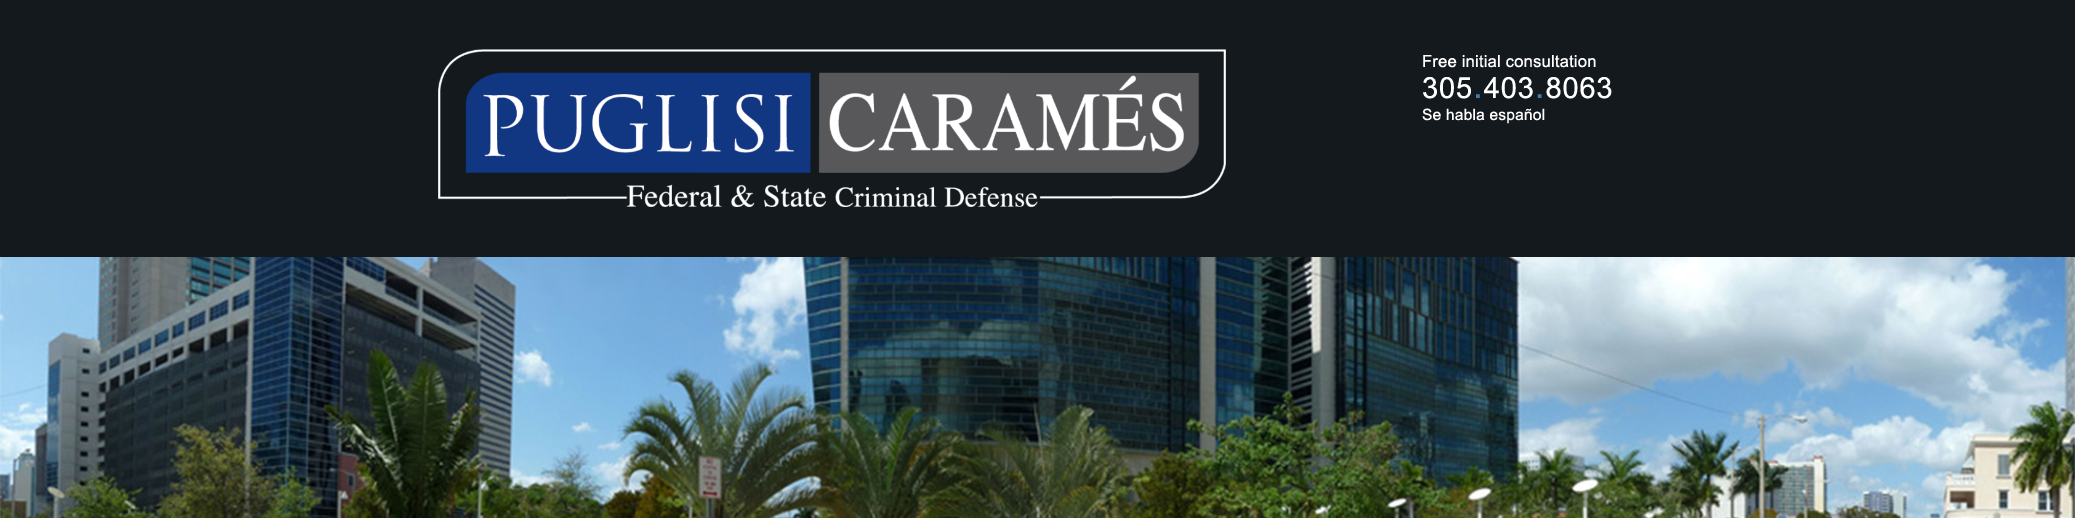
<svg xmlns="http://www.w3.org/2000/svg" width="2075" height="518">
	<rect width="100%" height="100%" fill="#14191E" />
	<image x="438" y="49" width="788" height="158" href="assets/img1.png" />
	<image x="1422" y="55" width="190" height="69" href="assets/img2.png" />
	<image x="0" y="257" width="2075" height="261" href="assets/img3.png" />
</svg>
